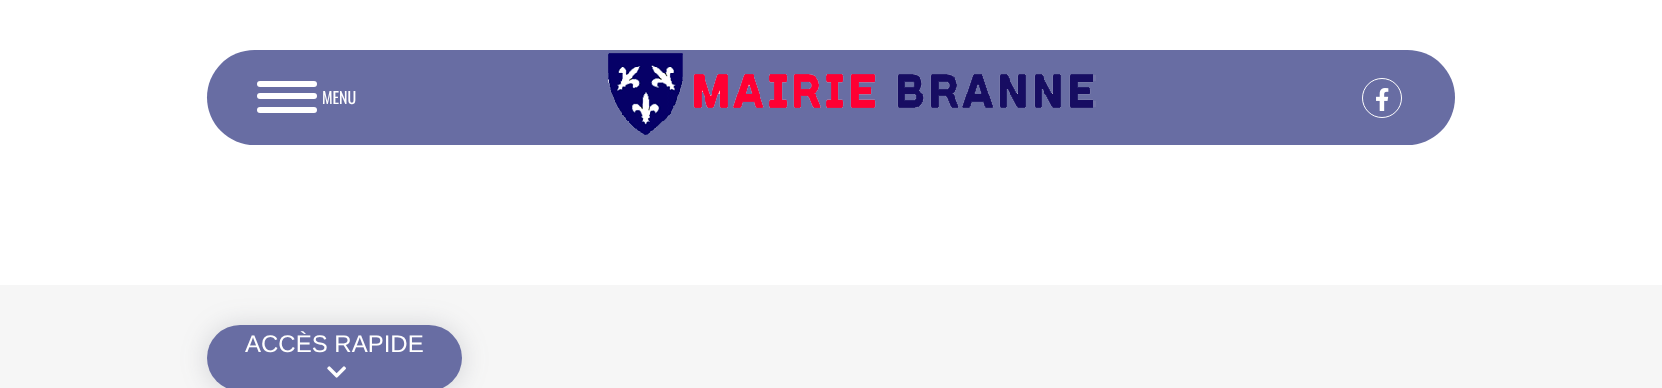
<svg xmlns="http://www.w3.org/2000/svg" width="1662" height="388">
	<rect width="100%" height="100%" fill="#FFFFFF" />
	<rect x="207" y="50" width="1248" height="95" rx="47.5" fill="#686DA3" />
	<rect x="257" y="81" width="60" height="6" rx="3" fill="#FFFFFF" />
	<rect x="257" y="93" width="60" height="6" rx="3" fill="#FFFFFF" />
	<rect x="257" y="107" width="60" height="6" rx="3" fill="#FFFFFF" />
	<text x="322" y="104" font-family="Oswald" font-size="16" fill="#FFFFFF">MENU</text>
	<image x="608" y="53" width="488" height="82" href="assets/img1.png" />
	<circle cx="1382" cy="98" r="19.5" fill="none" stroke="#FFFFFF" />
	<image x="1376" y="88" width="13" height="23" href="assets/img2.png" />
	<rect x="0" y="285" width="1662" height="103" fill="#F6F6F6" />
	<rect x="206" y="325" width="257" height="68" rx="34" fill="#535C68" fill-opacity="0.2" filter="blur(13px)" />
	<rect x="207" y="325" width="255" height="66" rx="33" fill="#686DA3" />
	<text x="245" y="352" font-family="Liberation Sans" font-size="24" fill="#FFFFFF">ACCÈS RAPIDE</text>
	<image x="327" y="366" width="19" height="12" href="assets/img3.png" />
</svg>
